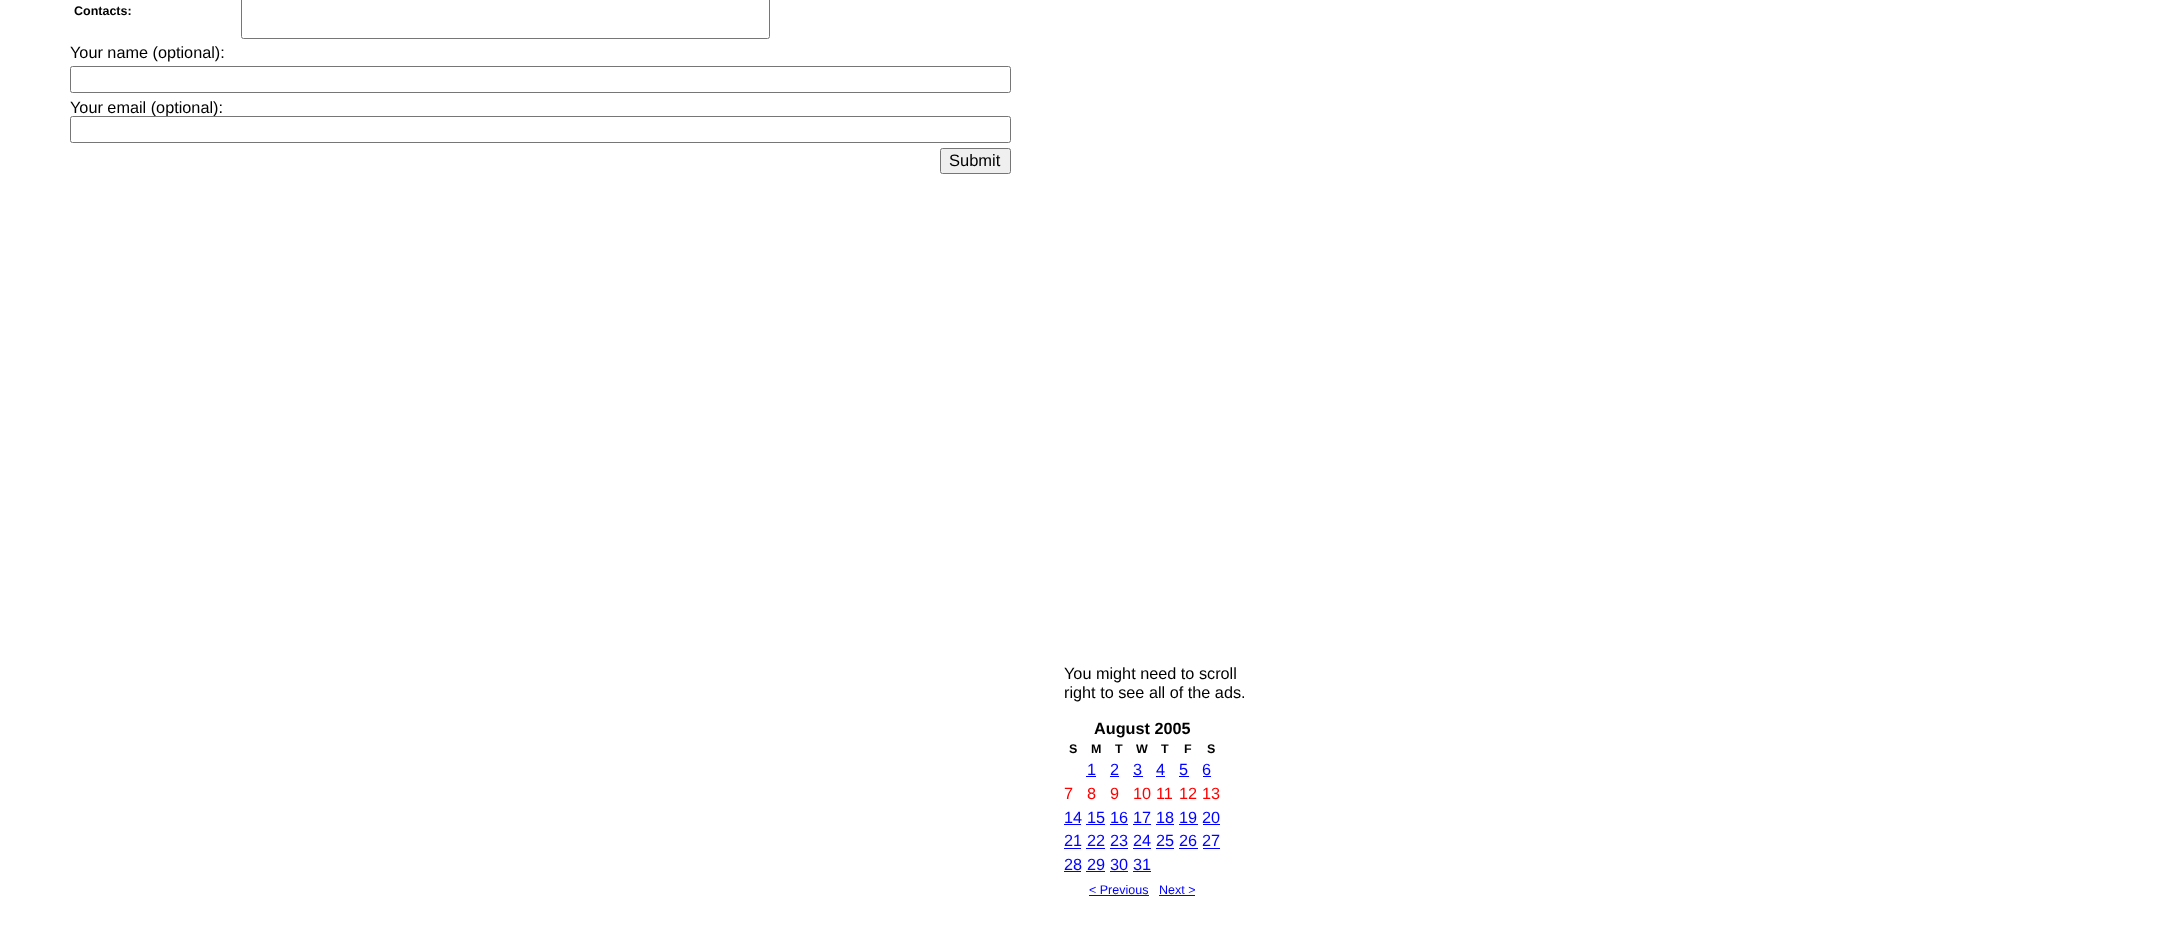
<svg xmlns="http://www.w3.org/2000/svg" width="2180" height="933">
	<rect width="100%" height="100%" fill="#FFFFFF" />
	<text x="74" y="15" font-family="Liberation Sans" font-size="12.5" font-weight="700" fill="#000000">Contacts:</text>
	<rect x="241.5" y="-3.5" width="528" height="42" rx="2" fill="none" stroke="#767676" />
	<text x="70" y="58" font-family="Liberation Sans" font-size="16.25" fill="#000000">Your name (optional):</text>
	<rect x="70.5" y="66.5" width="940" height="26" rx="2" fill="none" stroke="#767676" />
	<text x="70" y="113" font-family="Liberation Sans" font-size="16.25" fill="#000000">Your email (optional):</text>
	<rect x="70.5" y="116.5" width="940" height="26" rx="2" fill="#FFFFFF" stroke="#767676" />
	<rect x="940.5" y="148.5" width="70" height="25" rx="2" fill="#EFEFEF" stroke="#767676" />
	<text x="949" y="166" font-family="Liberation Sans" font-size="16.5" fill="#000000">Submit</text>
	<g font-family="Liberation Sans" font-size="16.25" fill="#000000">
		<text x="1064" y="679">You might need to scroll</text>
		<text x="1064" y="698">right to see all of the ads.</text>
	</g>
	<text x="1094" y="734" font-family="Liberation Sans" font-size="16.25" font-weight="700" fill="#000000">August 2005</text>
	<g font-family="Liberation Sans" font-size="12.5" font-weight="700" fill="#000000">
		<text x="1069" y="753">S</text>
		<text x="1091" y="753">M</text>
		<text x="1115" y="753">T</text>
		<text x="1136" y="753">W</text>
		<text x="1161" y="753">T</text>
		<text x="1184" y="753">F</text>
		<text x="1207" y="753">S</text>
	</g>
	<text x="1087" y="775" font-family="Liberation Sans" font-size="16.25" fill="#0000FF">1</text>
	<rect x="1086" y="776" width="10" height="1" fill="#0000FF" />
	<text x="1110" y="775" font-family="Liberation Sans" font-size="16.25" fill="#0000FF">2</text>
	<rect x="1110" y="776" width="9" height="1" fill="#0000FF" />
	<text x="1133" y="775" font-family="Liberation Sans" font-size="16.25" fill="#0000FF">3</text>
	<rect x="1133" y="776" width="10" height="1" fill="#0000FF" />
	<text x="1156" y="775" font-family="Liberation Sans" font-size="16.25" fill="#0000FF">4</text>
	<rect x="1156" y="776" width="9" height="1" fill="#0000FF" />
	<text x="1179" y="775" font-family="Liberation Sans" font-size="16.25" fill="#0000FF">5</text>
	<rect x="1179" y="776" width="10" height="1" fill="#0000FF" />
	<text x="1202" y="775" font-family="Liberation Sans" font-size="16.25" fill="#0000FF">6</text>
	<rect x="1203" y="776" width="8" height="1" fill="#0000FF" />
	<g font-family="Liberation Sans" font-size="16.25" fill="#FF0000">
		<text x="1064" y="799">7</text>
		<text x="1087" y="799">8</text>
		<text x="1110" y="799">9</text>
		<text x="1133" y="799">10</text>
		<text x="1156" y="799">11</text>
		<text x="1179" y="799">12</text>
		<text x="1202" y="799">13</text>
	</g>
	<text x="1064" y="823" font-family="Liberation Sans" font-size="16.25" fill="#0000FF">14</text>
	<rect x="1064" y="824" width="17" height="1" fill="#0000FF" />
	<text x="1087" y="823" font-family="Liberation Sans" font-size="16.25" fill="#0000FF">15</text>
	<rect x="1086" y="824" width="19" height="1" fill="#0000FF" />
	<text x="1110" y="823" font-family="Liberation Sans" font-size="16.25" fill="#0000FF">16</text>
	<rect x="1110" y="824" width="18" height="1" fill="#0000FF" />
	<text x="1133" y="823" font-family="Liberation Sans" font-size="16.25" fill="#0000FF">17</text>
	<rect x="1133" y="824" width="18" height="1" fill="#0000FF" />
	<text x="1156" y="823" font-family="Liberation Sans" font-size="16.25" fill="#0000FF">18</text>
	<rect x="1156" y="824" width="18" height="1" fill="#0000FF" />
	<text x="1179" y="823" font-family="Liberation Sans" font-size="16.25" fill="#0000FF">19</text>
	<rect x="1179" y="824" width="19" height="1" fill="#0000FF" />
	<text x="1202" y="823" font-family="Liberation Sans" font-size="16.25" fill="#0000FF">20</text>
	<rect x="1203" y="824" width="17" height="1" fill="#0000FF" />
	<text x="1064" y="846" font-family="Liberation Sans" font-size="16.25" fill="#0000FF">21</text>
	<rect x="1064" y="848" width="17" height="1" fill="#0000FF" />
	<text x="1087" y="846" font-family="Liberation Sans" font-size="16.25" fill="#0000FF">22</text>
	<rect x="1086" y="848" width="19" height="1" fill="#0000FF" />
	<text x="1110" y="846" font-family="Liberation Sans" font-size="16.25" fill="#0000FF">23</text>
	<rect x="1110" y="848" width="18" height="1" fill="#0000FF" />
	<text x="1133" y="846" font-family="Liberation Sans" font-size="16.25" fill="#0000FF">24</text>
	<rect x="1133" y="848" width="18" height="1" fill="#0000FF" />
	<text x="1156" y="846" font-family="Liberation Sans" font-size="16.25" fill="#0000FF">25</text>
	<rect x="1156" y="848" width="18" height="1" fill="#0000FF" />
	<text x="1179" y="846" font-family="Liberation Sans" font-size="16.25" fill="#0000FF">26</text>
	<rect x="1179" y="848" width="19" height="1" fill="#0000FF" />
	<text x="1202" y="846" font-family="Liberation Sans" font-size="16.25" fill="#0000FF">27</text>
	<rect x="1203" y="848" width="17" height="1" fill="#0000FF" />
	<text x="1064" y="870" font-family="Liberation Sans" font-size="16.25" fill="#0000FF">28</text>
	<rect x="1064" y="871" width="17" height="1" fill="#0000FF" />
	<text x="1087" y="870" font-family="Liberation Sans" font-size="16.25" fill="#0000FF">29</text>
	<rect x="1086" y="871" width="19" height="1" fill="#0000FF" />
	<text x="1110" y="870" font-family="Liberation Sans" font-size="16.25" fill="#0000FF">30</text>
	<rect x="1110" y="871" width="18" height="1" fill="#0000FF" />
	<text x="1133" y="870" font-family="Liberation Sans" font-size="16.25" fill="#0000FF">31</text>
	<rect x="1133" y="871" width="18" height="1" fill="#0000FF" />
	<text x="1089" y="894" font-family="Liberation Sans" font-size="12.5" fill="#0000FF">&lt; Previous</text>
	<rect x="1089" y="895" width="60" height="1" fill="#0000FF" />
	<text x="1159" y="894" font-family="Liberation Sans" font-size="12.5" fill="#0000FF">Next &gt;</text>
	<rect x="1159" y="895" width="36" height="1" fill="#0000FF" />
</svg>
